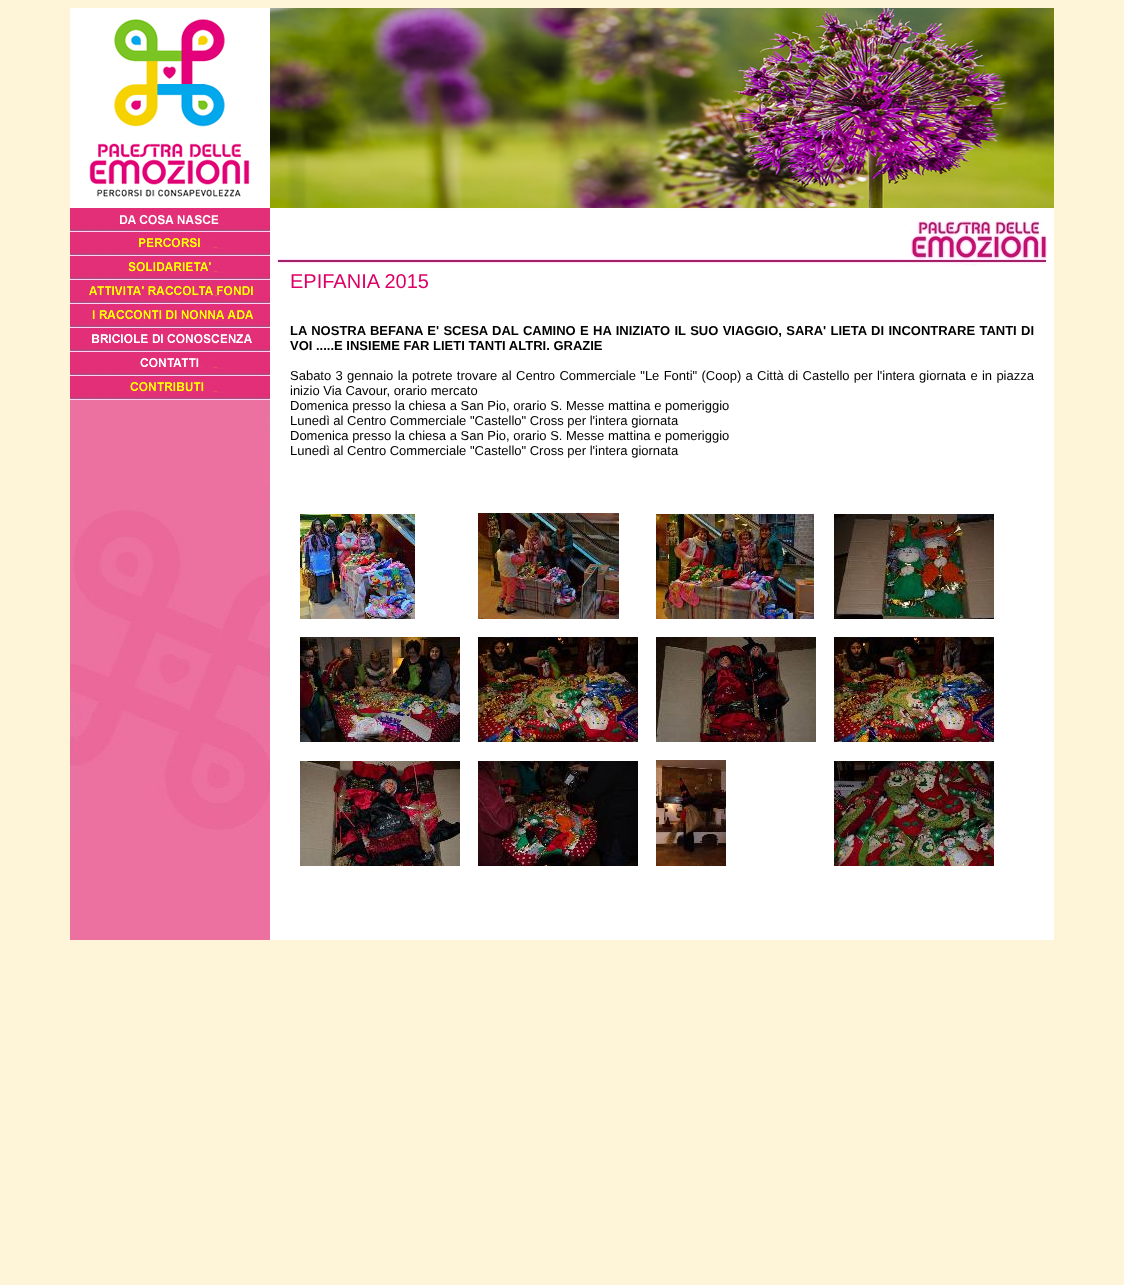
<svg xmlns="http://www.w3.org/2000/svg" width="1124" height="1285">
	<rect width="100%" height="100%" fill="#FEF5D8" />
	<image x="70" y="8" width="200" height="200" href="assets/img1.png" />
	<image x="270" y="8" width="784" height="200" href="assets/img2.png" />
	<rect x="70" y="830" width="200" height="110" fill="#EC71A0" />
	<image x="70" y="208" width="200" height="24" href="assets/img3.png" />
	<image x="70" y="232" width="200" height="24" href="assets/img4.png" />
	<image x="70" y="256" width="200" height="24" href="assets/img5.png" />
	<image x="70" y="280" width="200" height="24" href="assets/img6.png" />
	<image x="70" y="304" width="200" height="24" href="assets/img7.png" />
	<image x="70" y="328" width="200" height="24" href="assets/img8.png" />
	<image x="70" y="352" width="200" height="24" href="assets/img9.png" />
	<image x="70" y="376" width="200" height="24" href="assets/img10.png" />
	<image x="70" y="400" width="200" height="430" href="assets/img11.png" />
	<rect x="270" y="208" width="784" height="732" fill="#FFFFFF" />
	<image x="276" y="208" width="771" height="58" href="assets/img12.png" />
	<text x="290" y="288" font-family="Liberation Sans" font-size="20" fill="#DD0067">EPIFANIA 2015</text>
	<g font-family="Liberation Sans" font-size="13" font-weight="700" fill="#000000">
		<text x="290" y="335" word-spacing="0.75">LA NOSTRA BEFANA E' SCESA DAL CAMINO E HA INIZIATO IL SUO VIAGGIO, SARA' LIETA DI INCONTRARE TANTI DI</text>
		<text x="290" y="350">VOI .....E INSIEME FAR LIETI TANTI ALTRI. GRAZIE</text>
	</g>
	<g font-family="Liberation Sans" font-size="13" fill="#000000">
		<text x="290" y="380" word-spacing="0.7">Sabato 3 gennaio la potrete trovare al Centro Commerciale "Le Fonti" (Coop) a Città di Castello per l'intera giornata e in piazza</text>
		<text x="290" y="395">inizio Via Cavour, orario mercato</text>
		<text x="290" y="410">Domenica presso la chiesa a San Pio, orario S. Messe mattina e pomeriggio</text>
		<text x="290" y="425">Lunedì al Centro Commerciale "Castello" Cross per l'intera giornata</text>
		<text x="290" y="440">Domenica presso la chiesa a San Pio, orario S. Messe mattina e pomeriggio</text>
		<text x="290" y="455">Lunedì al Centro Commerciale "Castello" Cross per l'intera giornata</text>
	</g>
	<image x="300" y="514" width="115" height="105" href="assets/img13.png" />
	<image x="478" y="513" width="141" height="106" href="assets/img14.png" />
	<image x="656" y="514" width="158" height="105" href="assets/img15.png" />
	<image x="834" y="514" width="160" height="105" href="assets/img16.png" />
	<image x="300" y="637" width="160" height="105" href="assets/img17.png" />
	<image x="478" y="637" width="160" height="105" href="assets/img18.png" />
	<image x="656" y="637" width="160" height="105" href="assets/img19.png" />
	<image x="834" y="637" width="160" height="105" href="assets/img18.png" />
	<image x="300" y="761" width="160" height="105" href="assets/img20.png" />
	<image x="478" y="761" width="160" height="105" href="assets/img21.png" />
	<image x="656" y="760" width="70" height="106" href="assets/img22.png" />
	<image x="834" y="761" width="160" height="105" href="assets/img23.png" />
</svg>
